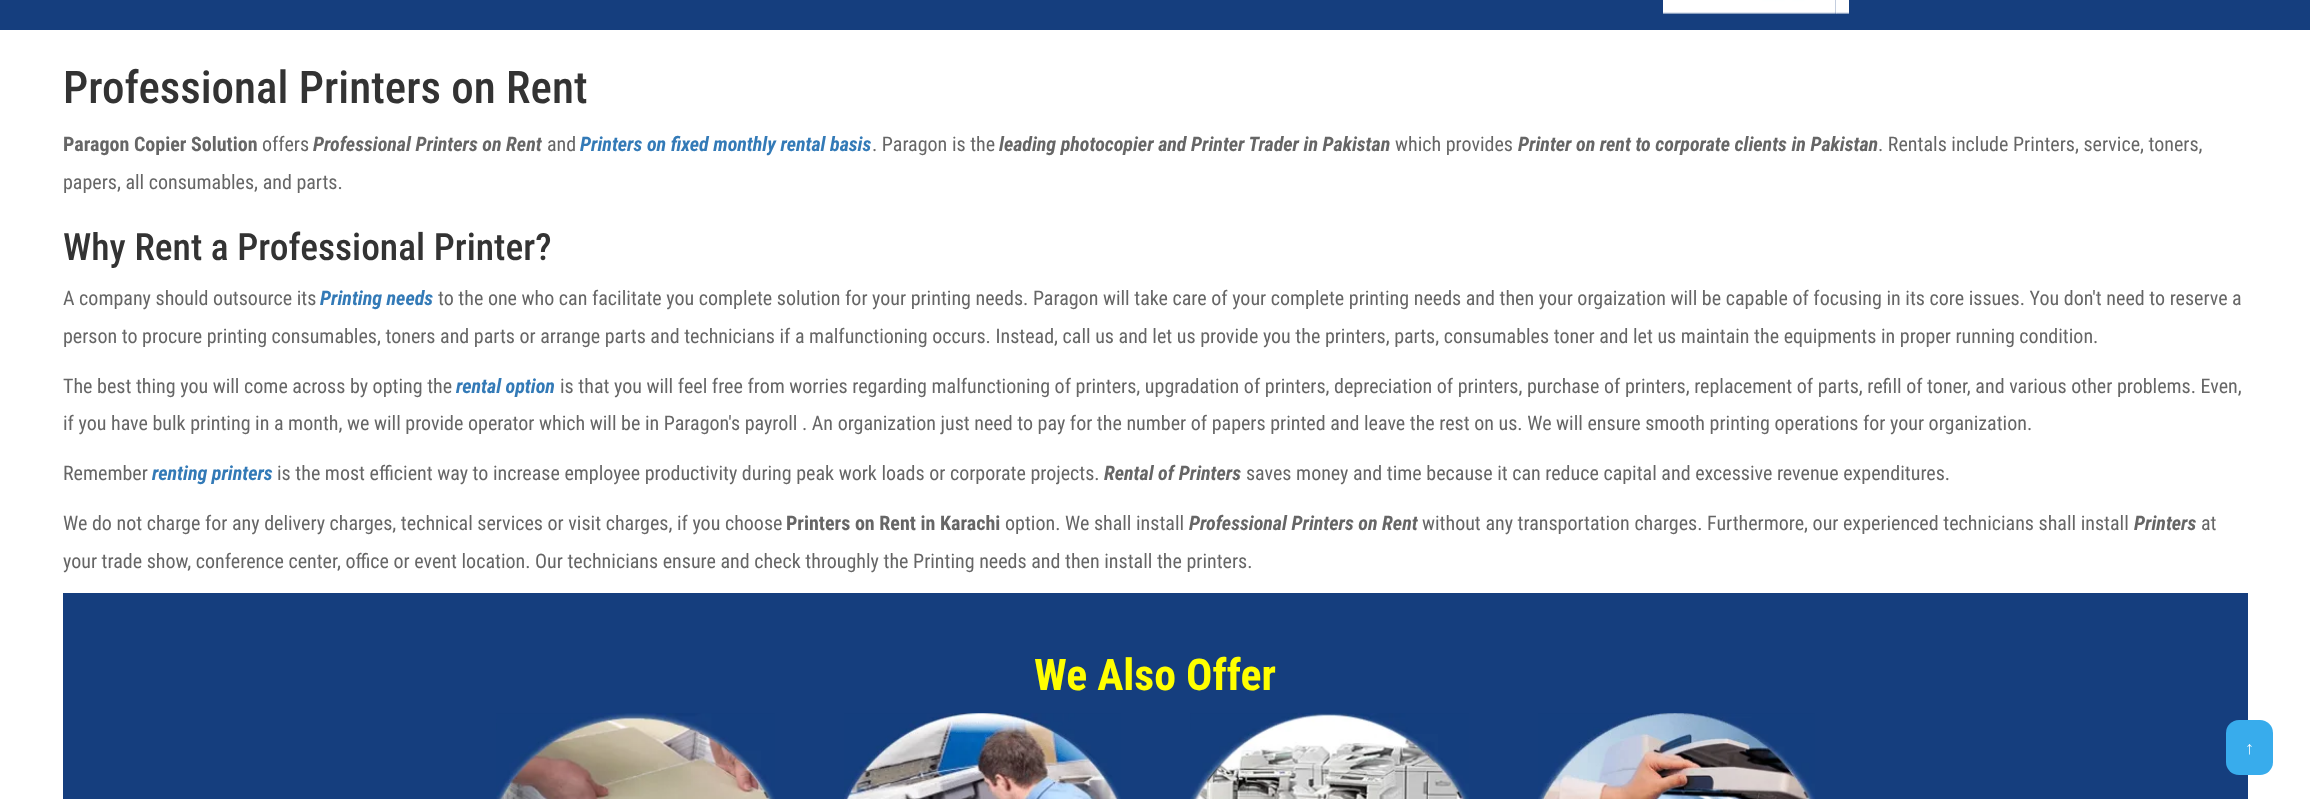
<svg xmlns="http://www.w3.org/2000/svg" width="2310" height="799">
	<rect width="100%" height="100%" fill="#FFFFFF" />
	<rect x="0" y="0" width="2310" height="30" fill="#153E7E" />
	<image x="1663" y="0" width="174" height="14" href="assets/img1.png" />
	<image x="1836" y="0" width="13" height="14" href="assets/img2.png" />
	<text x="63" y="103" font-family="Roboto Condensed" font-size="45" font-weight="500" fill="#333333">Professional Printers on Rent</text>
	<text x="63" y="151" font-family="Roboto Condensed" font-size="20" font-weight="700" fill="#666666">Paragon Copier Solution</text>
	<text x="262" y="151" font-family="Roboto Condensed" font-size="20" fill="#666666">offers</text>
	<text x="313" y="151" font-family="Roboto Condensed" font-size="20" font-weight="700" font-style="italic" fill="#666666">Professional Printers on Rent</text>
	<text x="547" y="151" font-family="Roboto Condensed" font-size="20" fill="#666666">and</text>
	<text x="580" y="151" font-family="Roboto Condensed" font-size="20" font-weight="700" font-style="italic" fill="#337AB7">Printers on fixed monthly rental basis</text>
	<text x="872" y="151" font-family="Roboto Condensed" font-size="20" fill="#666666">. Paragon is the</text>
	<text x="999" y="151" font-family="Roboto Condensed" font-size="20" font-weight="700" font-style="italic" fill="#666666">leading photocopier and Printer Trader in Pakistan</text>
	<text x="1395" y="151" font-family="Roboto Condensed" font-size="20" fill="#666666">which provides</text>
	<text x="1518" y="151" font-family="Roboto Condensed" font-size="20" font-weight="700" font-style="italic" fill="#666666">Printer on rent to corporate clients in Pakistan</text>
	<g font-family="Roboto Condensed" font-size="20" fill="#666666">
		<text x="1878" y="151">. Rentals include Printers, service, toners,</text>
		<text x="63" y="189">papers, all consumables, and parts.</text>
	</g>
	<text x="63" y="260" font-family="Roboto Condensed" font-size="37.5" font-weight="500" fill="#333333">Why Rent a Professional Printer?</text>
	<text x="63" y="305" font-family="Roboto Condensed" font-size="20" fill="#666666">A company should outsource its</text>
	<text x="320" y="305" font-family="Roboto Condensed" font-size="20" font-weight="700" font-style="italic" fill="#337AB7">Printing needs</text>
	<g font-family="Roboto Condensed" font-size="20" fill="#666666">
		<text x="438" y="305">to the one who can facilitate you complete solution for your printing needs. Paragon will take care of your complete printing needs and then your orgaization will be capable of focusing in its core issues. You don't need to reserve a</text>
		<text x="63" y="343">person to procure printing consumables, toners and parts or arrange parts and technicians if a malfunctioning occurs. Instead, call us and let us provide you the printers, parts, consumables toner and let us maintain the equipments in proper running condition.</text>
		<text x="63" y="393">The best thing you will come across by opting the</text>
	</g>
	<text x="456" y="393" font-family="Roboto Condensed" font-size="20" font-weight="700" font-style="italic" fill="#337AB7">rental option</text>
	<g font-family="Roboto Condensed" font-size="20" fill="#666666">
		<text x="560" y="393">is that you will feel free from worries regarding malfunctioning of printers, upgradation of printers, depreciation of printers, purchase of printers, replacement of parts, refill of toner, and various other problems. Even,</text>
		<text x="63" y="430">if you have bulk printing in a month, we will provide operator which will be in Paragon's payroll . An organization just need to pay for the number of papers printed and leave the rest on us. We will ensure smooth printing operations for your organization.</text>
		<text x="63" y="480">Remember</text>
	</g>
	<text x="152" y="480" font-family="Roboto Condensed" font-size="20" font-weight="700" font-style="italic" fill="#337AB7">renting printers</text>
	<text x="277" y="480" font-family="Roboto Condensed" font-size="20" fill="#666666">is the most efficient way to increase employee productivity during peak work loads or corporate projects.</text>
	<text x="1104" y="480" font-family="Roboto Condensed" font-size="20" font-weight="700" font-style="italic" fill="#666666">Rental of Printers</text>
	<g font-family="Roboto Condensed" font-size="20" fill="#666666">
		<text x="1246" y="480">saves money and time because it can reduce capital and excessive revenue expenditures.</text>
		<text x="63" y="530">We do not charge for any delivery charges, technical services or visit charges, if you choose</text>
	</g>
	<text x="786" y="530" font-family="Roboto Condensed" font-size="20" font-weight="700" fill="#666666">Printers on Rent in Karachi</text>
	<text x="1005" y="530" font-family="Roboto Condensed" font-size="20" fill="#666666">option. We shall install</text>
	<text x="1189" y="530" font-family="Roboto Condensed" font-size="20" font-weight="700" font-style="italic" fill="#666666">Professional Printers on Rent</text>
	<text x="1422" y="530" font-family="Roboto Condensed" font-size="20" fill="#666666">without any transportation charges. Furthermore, our experienced technicians shall install</text>
	<text x="2134" y="530" font-family="Roboto Condensed" font-size="20" font-weight="700" font-style="italic" fill="#666666">Printers</text>
	<g font-family="Roboto Condensed" font-size="20" fill="#666666">
		<text x="2201" y="530">at</text>
		<text x="63" y="568">your trade show, conference center, office or event location. Our technicians ensure and check throughly the Printing needs and then install the printers.</text>
	</g>
	<rect x="63" y="593" width="2185" height="206" fill="#153E7E" />
	<text x="1034" y="690" font-family="Roboto Condensed" font-size="43.75" font-weight="700" fill="#FFFF00">We Also Offer</text>
	<image x="496" y="713" width="279" height="86" href="assets/img3.png" />
	<image x="844" y="713" width="277" height="86" href="assets/img4.png" />
	<image x="1190" y="713" width="279" height="86" href="assets/img5.png" />
	<image x="1538" y="713" width="277" height="86" href="assets/img6.png" />
	<rect x="2226" y="720" width="47" height="55" rx="13" fill="#38ACEC" />
	<text x="2245" y="754" font-family="Liberation Sans" font-size="18" fill="#FFFFFF">↑</text>
</svg>
